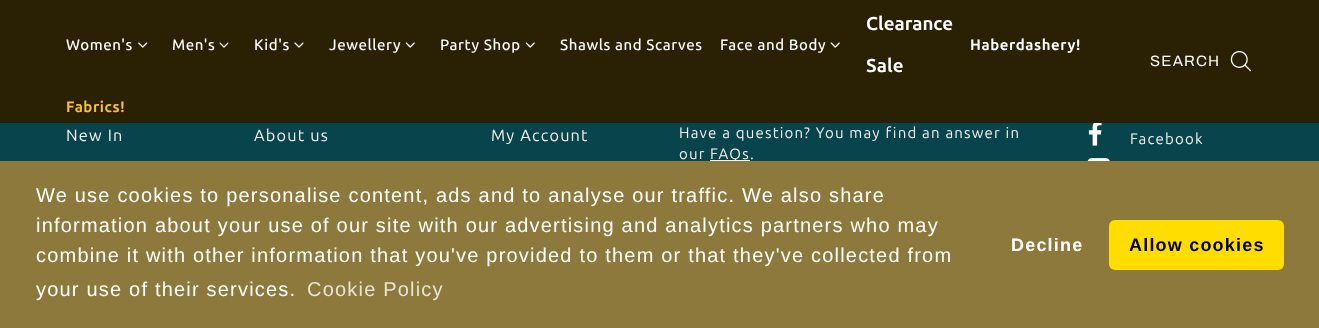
<svg xmlns="http://www.w3.org/2000/svg" width="1319" height="328">
	<rect width="100%" height="100%" fill="#08444B" />
	<rect x="0" y="0" width="1319" height="123" fill="#2A2104" />
	<text x="66" y="50" font-family="Ubuntu" font-size="15" font-weight="500" letter-spacing="0.6" fill="#FFFFFF">Women's</text>
	<image x="138" y="42" width="10" height="6" href="assets/img1.png" />
	<text x="172" y="50" font-family="Ubuntu" font-size="15" font-weight="500" letter-spacing="0.6" fill="#FFFFFF">Men's</text>
	<image x="219" y="42" width="10" height="6" href="assets/img2.png" />
	<text x="254" y="50" font-family="Ubuntu" font-size="15" font-weight="500" letter-spacing="0.6" fill="#FFFFFF">Kid's</text>
	<image x="294" y="42" width="10" height="6" href="assets/img2.png" />
	<text x="329" y="50" font-family="Ubuntu" font-size="15" font-weight="500" letter-spacing="0.6" fill="#FFFFFF">Jewellery</text>
	<image x="405" y="42" width="10" height="6" href="assets/img3.png" />
	<text x="440" y="50" font-family="Ubuntu" font-size="15" font-weight="500" letter-spacing="0.6" fill="#FFFFFF">Party Shop</text>
	<image x="525" y="42" width="10" height="6" href="assets/img3.png" />
	<g font-family="Ubuntu" font-size="15" font-weight="500" letter-spacing="0.6" fill="#FFFFFF">
		<text x="560" y="50">Shawls and Scarves</text>
		<text x="720" y="50">Face and Body</text>
	</g>
	<image x="830" y="42" width="10" height="6" href="assets/img3.png" />
	<g font-family="Ubuntu" font-size="18.75" font-weight="700" fill="#FFFFFF">
		<text x="866" y="30">Clearance</text>
		<text x="866" y="72">Sale</text>
	</g>
	<text x="970" y="50" font-family="Ubuntu" font-size="15" font-weight="700" letter-spacing="0.6" fill="#FFFFFF">Haberdashery!</text>
	<text x="66" y="112" font-family="Ubuntu" font-size="15" font-weight="700" letter-spacing="0.6" fill="#FBC22A">Fabrics!</text>
	<text x="1150" y="66" font-family="Archivo" font-size="15" letter-spacing="1.2" fill="#FFFFFF">SEARCH</text>
	<image x="1230" y="51" width="21" height="21" href="assets/img4.png" />
	<g font-family="Ubuntu" font-size="16.25" letter-spacing="1.2" fill="#F7F0F0">
		<text x="66" y="141">New In</text>
		<text x="254" y="141">About us</text>
		<text x="491" y="141">My Account</text>
	</g>
	<g font-family="Ubuntu" font-size="15" letter-spacing="1.2" fill="#F7F0F0">
		<text x="679" y="138">Have a question? You may find an answer in</text>
		<text x="679" y="159">our</text>
	</g>
	<rect x="710" y="160" width="40" height="1" fill="#F7F0F0" />
	<text x="710" y="159" font-family="Ubuntu" font-size="15" letter-spacing="1.2" fill="#F7F0F0">FAQs.</text>
	<image x="1088" y="123" width="14" height="23" href="assets/img5.png" />
	<text x="1130" y="144" font-family="Ubuntu" font-size="15" letter-spacing="1.2" fill="#F7F0F0">Facebook</text>
	<image x="1087" y="158" width="23" height="3" href="assets/img6.png" />
	<rect x="0" y="161" width="1319" height="167" fill="#8D793C" />
	<g font-family="Liberation Sans" font-size="20" letter-spacing="1.2" fill="#FFFFFF">
		<text x="36" y="202">We use cookies to personalise content, ads and to analyse our traffic. We also share</text>
		<text x="36" y="232">information about your use of our site with our advertising and analytics partners who may</text>
		<text x="36" y="262">combine it with other information that you've provided to them or that they've collected from</text>
		<text x="36" y="296">your use of their services.</text>
	</g>
	<text x="307" y="296" font-family="Liberation Sans" font-size="20" letter-spacing="1.2" fill="#E8E4D8">Cookie Policy</text>
	<text x="1011" y="251" font-family="Liberation Sans" font-size="18" font-weight="700" letter-spacing="1.2" fill="#FFFFFF">Decline</text>
	<rect x="1109" y="220" width="175" height="50" rx="6" fill="#FFDD00" />
	<text x="1129" y="251" font-family="Liberation Sans" font-size="18" font-weight="700" letter-spacing="1.2" fill="#000000">Allow cookies</text>
</svg>
